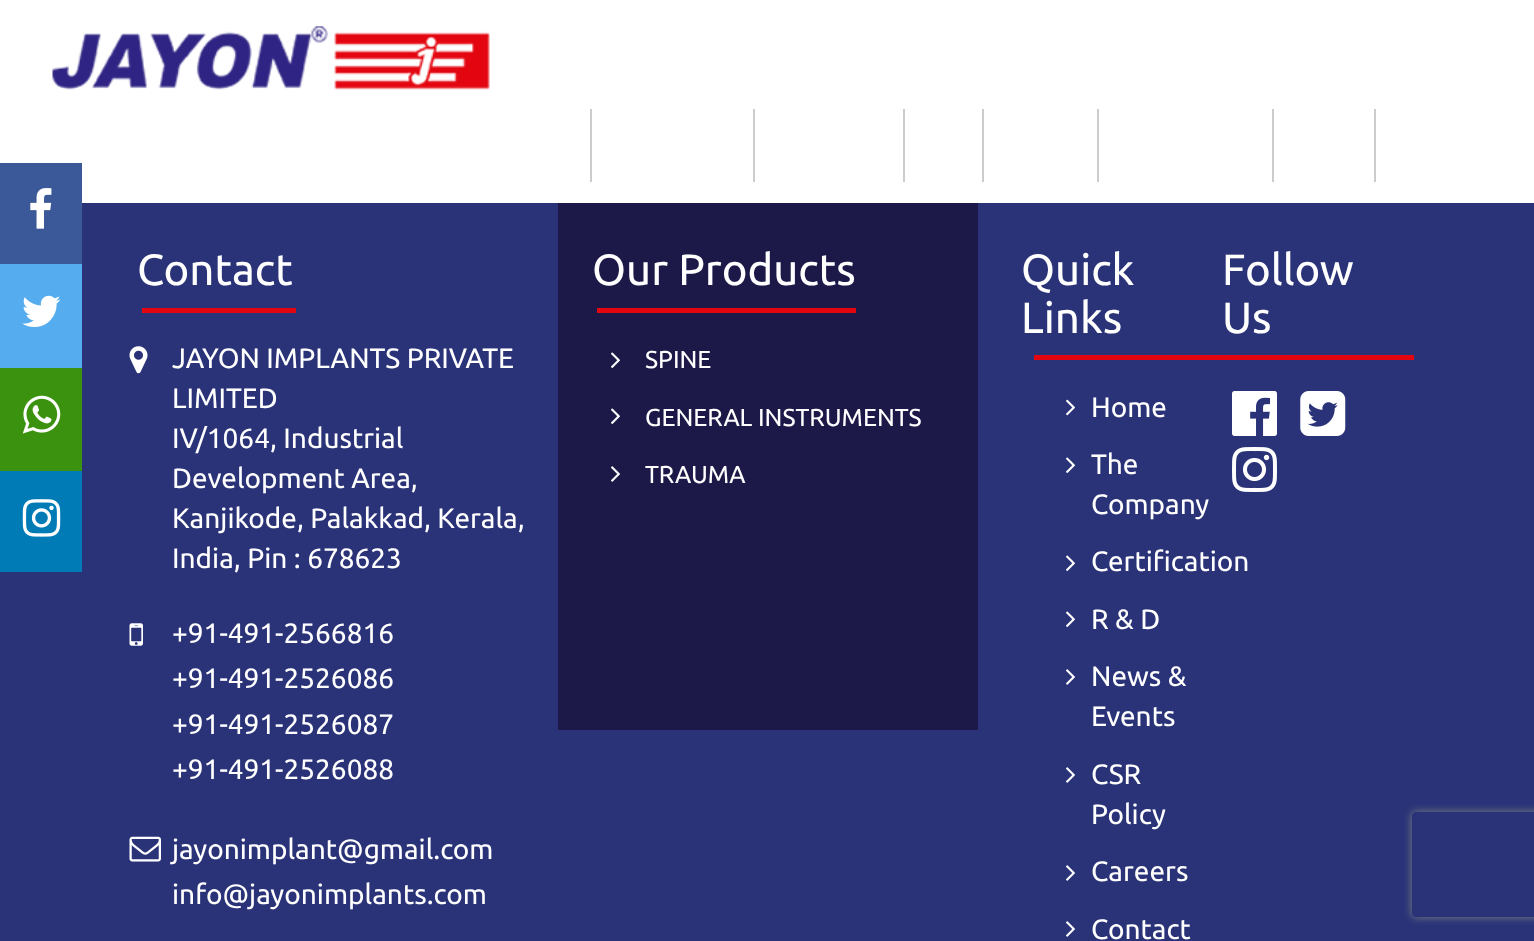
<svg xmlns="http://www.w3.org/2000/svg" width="1534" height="941">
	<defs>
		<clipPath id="clip1"><path d="M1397 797H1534V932H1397ZM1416 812H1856C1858 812 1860 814 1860 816V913C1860 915 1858 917 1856 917H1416C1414 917 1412 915 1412 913V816C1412 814 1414 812 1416 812Z" clip-rule="evenodd" /></clipPath>
	</defs>
	<rect width="100%" height="100%" fill="#FFFFFF" />
	<image x="52" y="26" width="438" height="64" href="assets/img1.png" />
	<rect x="590" y="109" width="2" height="73" fill="#CCCCCC" />
	<rect x="753" y="109" width="2" height="73" fill="#CCCCCC" />
	<rect x="903" y="109" width="2" height="73" fill="#CCCCCC" />
	<rect x="982" y="109" width="2" height="73" fill="#CCCCCC" />
	<rect x="1097" y="109" width="2" height="73" fill="#CCCCCC" />
	<rect x="1272" y="109" width="2" height="73" fill="#CCCCCC" />
	<rect x="1374" y="109" width="2" height="73" fill="#CCCCCC" />
	<rect x="0" y="203" width="1534" height="738" fill="#2A3378" />
	<rect x="0" y="163" width="82" height="101" fill="#3B5998" />
	<image x="30" y="188" width="22" height="41" href="assets/img2.png" />
	<rect x="0" y="264" width="82" height="104" fill="#55ACEE" />
	<image x="22" y="295" width="39" height="32" href="assets/img3.png" />
	<rect x="0" y="368" width="82" height="103" fill="#3B920E" />
	<image x="22" y="395" width="39" height="39" href="assets/img4.png" />
	<rect x="0" y="471" width="82" height="101" fill="#007BB5" />
	<image x="22" y="499" width="39" height="38" href="assets/img5.png" />
	<text x="137" y="285" font-family="Ubuntu" font-size="43.75" fill="#FFFFFF">Contact</text>
	<rect x="142" y="308" width="154" height="5" fill="#E3050F" />
	<image x="129" y="346" width="19" height="28" href="assets/img6.png" />
	<g font-family="Ubuntu" font-size="28" fill="#FFFFFF">
		<text x="172" y="368">JAYON IMPLANTS PRIVATE</text>
		<text x="172" y="408">LIMITED</text>
		<text x="172" y="448">IV/1064, Industrial</text>
		<text x="172" y="488">Development Area,</text>
		<text x="172" y="528">Kanjikode, Palakkad, Kerala,</text>
		<text x="172" y="568">India, Pin : 678623</text>
	</g>
	<image x="129" y="623" width="14" height="23" href="assets/img7.png" />
	<g font-family="Ubuntu" font-size="28" fill="#FFFFFF">
		<text x="172" y="643">+91-491-2566816</text>
		<text x="172" y="688">+91-491-2526086</text>
		<text x="172" y="734">+91-491-2526087</text>
		<text x="172" y="779">+91-491-2526088</text>
	</g>
	<image x="129" y="836" width="32" height="26" href="assets/img8.png" />
	<g font-family="Ubuntu" font-size="28" fill="#FFFFFF">
		<text x="172" y="859">jayonimplant@gmail.com</text>
		<text x="172" y="904">info@jayonimplants.com</text>
	</g>
	<rect x="558" y="203" width="420" height="527" fill="#1C1948" />
	<text x="592" y="285" font-family="Ubuntu" font-size="43.75" fill="#FFFFFF">Our Products</text>
	<rect x="597" y="308" width="259" height="5" fill="#E3050F" />
	<image x="611" y="352" width="9" height="16" href="assets/img9.png" />
	<text x="645" y="368" font-family="Ubuntu" font-size="24.5" fill="#FFFFFF">SPINE</text>
	<image x="611" y="408" width="9" height="16" href="assets/img9.png" />
	<text x="645" y="426" font-family="Ubuntu" font-size="24.5" fill="#FFFFFF">GENERAL INSTRUMENTS</text>
	<image x="611" y="466" width="9" height="16" href="assets/img10.png" />
	<text x="645" y="483" font-family="Ubuntu" font-size="24.5" fill="#FFFFFF">TRAUMA</text>
	<g font-family="Ubuntu" font-size="43.75" fill="#FFFFFF">
		<text x="1021" y="285">Quick</text>
		<text x="1021" y="333">Links</text>
	</g>
	<rect x="1034" y="355" width="380" height="5" fill="#E3050F" />
	<image x="1066" y="399" width="9" height="17" href="assets/img11.png" />
	<text x="1091" y="417" font-family="Ubuntu" font-size="28" fill="#FFFFFF">Home</text>
	<image x="1066" y="457" width="9" height="16" href="assets/img12.png" />
	<g font-family="Ubuntu" font-size="28" fill="#FFFFFF">
		<text x="1091" y="474">The</text>
		<text x="1091" y="514">Company</text>
	</g>
	<image x="1066" y="555" width="9" height="16" href="assets/img12.png" />
	<text x="1091" y="571" font-family="Ubuntu" font-size="28" fill="#FFFFFF">Certification</text>
	<image x="1066" y="611" width="9" height="16" href="assets/img12.png" />
	<text x="1091" y="629" font-family="Ubuntu" font-size="28" fill="#FFFFFF">R &amp; D</text>
	<image x="1066" y="669" width="9" height="16" href="assets/img13.png" />
	<g font-family="Ubuntu" font-size="28" fill="#FFFFFF">
		<text x="1091" y="686">News &amp;</text>
		<text x="1091" y="726">Events</text>
	</g>
	<image x="1066" y="767" width="9" height="16" href="assets/img13.png" />
	<g font-family="Ubuntu" font-size="28" fill="#FFFFFF">
		<text x="1091" y="784">CSR</text>
		<text x="1091" y="824">Policy</text>
	</g>
	<image x="1066" y="865" width="9" height="16" href="assets/img13.png" />
	<text x="1091" y="881" font-family="Ubuntu" font-size="28" fill="#FFFFFF">Careers</text>
	<image x="1066" y="921" width="9" height="16" href="assets/img13.png" />
	<text x="1091" y="939" font-family="Ubuntu" font-size="28" fill="#FFFFFF">Contact</text>
	<g font-family="Ubuntu" font-size="43.75" fill="#FFFFFF">
		<text x="1222" y="285">Follow</text>
		<text x="1222" y="333">Us</text>
	</g>
	<image x="1232" y="391" width="45" height="45" href="assets/img14.png" />
	<image x="1300" y="391" width="46" height="45" href="assets/img15.png" />
	<image x="1232" y="447" width="45" height="45" href="assets/img16.png" />
	<g clip-path="url(#clip1)">
		<rect x="1412" y="812" width="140" height="105" rx="4" fill="#808080" filter="blur(4.5px)" />
	</g>
</svg>
